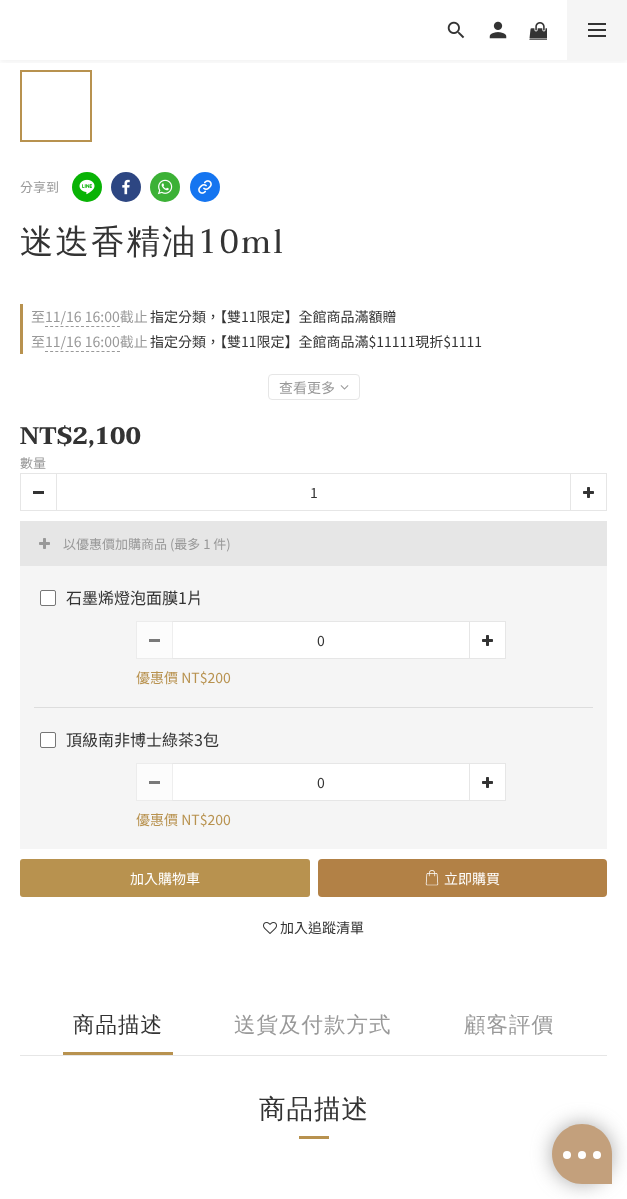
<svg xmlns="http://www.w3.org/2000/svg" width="627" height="1199">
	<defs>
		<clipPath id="clip1"><rect x="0" y="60" width="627" height="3" /></clipPath>
	</defs>
	<rect width="100%" height="100%" fill="#FFFFFF" />
	<rect x="21" y="71" width="70" height="70" fill="none" stroke="#B8924F" stroke-width="2" />
	<g clip-path="url(#clip1)">
		<rect x="0" y="2" width="627" height="60" fill="#000000" fill-opacity="0.06" filter="blur(3px)" />
	</g>
	<image x="447" y="21" width="18" height="18" href="assets/img1.png" />
	<image x="489" y="21" width="18" height="18" href="assets/img2.png" />
	<image x="529" y="22" width="18" height="18" href="assets/img3.png" />
	<rect x="567" y="0" width="60" height="60" fill="#F5F5F5" />
	<rect x="588" y="29" width="18" height="2" fill="#333333" />
	<rect x="588" y="23" width="18" height="2" fill="#333333" />
	<rect x="588" y="35" width="18" height="2" fill="#333333" />
	<text x="20" y="192" font-family="Noto Sans TC" font-size="13" fill="#999999">分享到</text>
	<circle cx="87" cy="187" r="15" fill="#09B305" />
	<image x="79" y="179" width="16" height="16" href="assets/img4.png" />
	<circle cx="126" cy="187" r="15" fill="#2D4682" />
	<image x="122" y="179" width="8" height="16" href="assets/img5.png" />
	<circle cx="165" cy="187" r="15" fill="#3CB136" />
	<image x="157" y="179" width="16" height="16" href="assets/img6.png" />
	<circle cx="205" cy="187" r="15" fill="#1575F0" />
	<image x="198" y="180" width="14" height="14" href="assets/img7.png" />
	<text x="20" y="253" font-family="WenQuanYi Zen Hei" font-size="33.5" font-weight="500" letter-spacing="2" fill="#333333">迷迭香精油</text>
	<text x="198" y="253" font-family="Taviraj" font-size="33.5" letter-spacing="2" fill="#333333">10ml</text>
	<rect x="20" y="304" width="3" height="50" fill="#B8924F" />
	<text x="31" y="322" font-family="Noto Sans TC" font-size="14" fill="#999999">至11/16 16:00截止</text>
	<path d="M45 326.5H120" fill="none" stroke="#999999" stroke-dasharray="3 2.14" />
	<text x="150" y="322" font-family="Noto Sans TC" font-size="14" fill="#333333">指定分類，【雙11限定】全館商品滿額贈</text>
	<text x="31" y="347" font-family="Noto Sans TC" font-size="14" fill="#999999">至11/16 16:00截止</text>
	<path d="M45 351.5H120" fill="none" stroke="#999999" stroke-dasharray="3 2.14" />
	<text x="150" y="347" font-family="Noto Sans TC" font-size="14" fill="#333333">指定分類，【雙11限定】全館商品滿$11111現折$1111</text>
	<rect x="268.5" y="374.5" width="91" height="25" rx="3.5" fill="none" stroke="#E6E6E6" />
	<text x="279" y="393" font-family="Noto Sans TC" font-size="14" fill="#999999">查看更多</text>
	<image x="340" y="385" width="9" height="5" href="assets/img8.png" />
	<text x="20" y="444" font-family="Taviraj" font-size="24" font-weight="700" fill="#333333">NT$2,100</text>
	<text x="20" y="468" font-family="Noto Sans TC" font-size="13" fill="#999999">數量</text>
	<rect x="56" y="473" width="515" height="1" fill="#E6E6E6" />
	<rect x="56" y="510" width="515" height="1" fill="#E6E6E6" />
	<rect x="20.5" y="473.5" width="36" height="37" fill="none" stroke="#E6E6E6" />
	<rect x="33" y="491" width="11" height="3" fill="#333333" />
	<text x="310" y="498" font-family="Noto Sans TC" font-size="14" fill="#333333">1</text>
	<rect x="570.5" y="473.5" width="36" height="37" fill="none" stroke="#E6E6E6" />
	<image x="583" y="487" width="11" height="11" href="assets/img9.png" />
	<rect x="20" y="521" width="587" height="45" fill="#E6E6E6" />
	<image x="39" y="538" width="11" height="11" href="assets/img10.png" />
	<text x="63" y="549" font-family="Noto Sans TC" font-size="13" fill="#999999">以優惠價加購商品 (最多 1 件)</text>
	<rect x="20" y="566" width="587" height="283" fill="#F5F5F5" />
	<rect x="136" y="621" width="36" height="38" fill="#FCFCFC" />
	<rect x="40.5" y="590.5" width="15" height="15" rx="1.5" fill="#FFFFFF" stroke="#767676" />
	<text x="66" y="604" font-family="Noto Sans TC" font-size="16" fill="#333333">石墨烯燈泡面膜1片</text>
	<rect x="172" y="621" width="1" height="38" fill="#FFFFFF" />
	<rect x="172" y="621" width="298" height="1" fill="#E6E6E6" />
	<rect x="172" y="621" width="1" height="1" fill="#F6F6F6" />
	<rect x="172" y="658" width="298" height="1" fill="#E6E6E6" />
	<rect x="172" y="658" width="1" height="1" fill="#F6F6F6" />
	<rect x="136.5" y="621.5" width="36" height="37" fill="none" stroke="#CCCCCC" stroke-opacity="0.33" />
	<rect x="149" y="639" width="11" height="3" fill="#797979" />
	<rect x="173" y="622" width="296" height="36" fill="#FFFFFF" />
	<text x="317" y="646" font-family="Noto Sans TC" font-size="14" fill="#333333">0</text>
	<rect x="469.5" y="621.5" width="36" height="37" fill="#FFFFFF" stroke="#E6E6E6" />
	<image x="482" y="635" width="11" height="11" href="assets/img9.png" />
	<text x="136" y="683" font-family="Noto Sans TC" font-size="14" fill="#B8924F">優惠價 NT$200</text>
	<rect x="34" y="707" width="559" height="1" fill="#DDDDDD" />
	<rect x="136" y="763" width="36" height="38" fill="#FCFCFC" />
	<rect x="40.5" y="732.5" width="15" height="15" rx="1.5" fill="#FFFFFF" stroke="#767676" />
	<text x="66" y="746" font-family="Noto Sans TC" font-size="16" fill="#333333">頂級南非博士綠茶3包</text>
	<rect x="172" y="763" width="1" height="38" fill="#FFFFFF" />
	<rect x="172" y="763" width="298" height="1" fill="#E6E6E6" />
	<rect x="172" y="763" width="1" height="1" fill="#F6F6F6" />
	<rect x="172" y="800" width="298" height="1" fill="#E6E6E6" />
	<rect x="172" y="800" width="1" height="1" fill="#F6F6F6" />
	<rect x="136.5" y="763.5" width="36" height="37" fill="none" stroke="#CCCCCC" stroke-opacity="0.33" />
	<rect x="149" y="781" width="11" height="3" fill="#797979" />
	<rect x="173" y="764" width="296" height="36" fill="#FFFFFF" />
	<text x="317" y="788" font-family="Noto Sans TC" font-size="14" fill="#333333">0</text>
	<rect x="469.5" y="763.5" width="36" height="37" fill="#FFFFFF" stroke="#E6E6E6" />
	<image x="482" y="777" width="11" height="11" href="assets/img9.png" />
	<text x="136" y="825" font-family="Noto Sans TC" font-size="14" fill="#B8924F">優惠價 NT$200</text>
	<rect x="20" y="859" width="290" height="38" rx="3" fill="#B8924F" />
	<text x="130" y="884" font-family="Noto Sans TC" font-size="14" fill="#FFFFFF">加入購物車</text>
	<rect x="318" y="859" width="289" height="38" rx="4" fill="#B28146" />
	<image x="425" y="870" width="14" height="16" href="assets/img11.png" />
	<text x="444" y="884" font-family="Noto Sans TC" font-size="14" fill="#FFFFFF">立即購買</text>
	<image x="263" y="922" width="14" height="12" href="assets/img12.png" />
	<text x="280" y="933" font-family="Noto Sans TC" font-size="14" fill="#333333">加入追蹤清單</text>
	<rect x="20" y="1055" width="587" height="1" fill="#E6E6E6" />
	<text x="73" y="1032" font-family="WenQuanYi Zen Hei" font-size="21.5" font-weight="500" letter-spacing="1" fill="#333333">商品描述</text>
	<rect x="63" y="1052" width="110" height="3" fill="#B8924F" />
	<g font-family="WenQuanYi Zen Hei" font-size="21.5" font-weight="500" letter-spacing="1" fill="#999999">
		<text x="234" y="1032">送貨及付款方式</text>
		<text x="464" y="1032">顧客評價</text>
	</g>
	<text x="259" y="1118" font-family="WenQuanYi Zen Hei" font-size="26.5" font-weight="500" letter-spacing="1" fill="#333333">商品描述</text>
	<rect x="299" y="1136" width="30" height="3" fill="#B8924F" />
	<rect x="552" y="1124" width="60" height="60" rx="30" fill="#777777" fill-opacity="0.64" filter="blur(10px)" />
	<path d="M582 1124C598.5 1124 612 1137.5 612 1154V1184H582C565.5 1184 552 1170.5 552 1154C552 1137.5 565.5 1124 582 1124Z" fill="#C3A07C" />
	<circle cx="567" cy="1155" r="4" fill="#FFFFFF" />
	<circle cx="582" cy="1155" r="4" fill="#FFFFFF" />
	<circle cx="597" cy="1155" r="4" fill="#FFFFFF" />
</svg>
